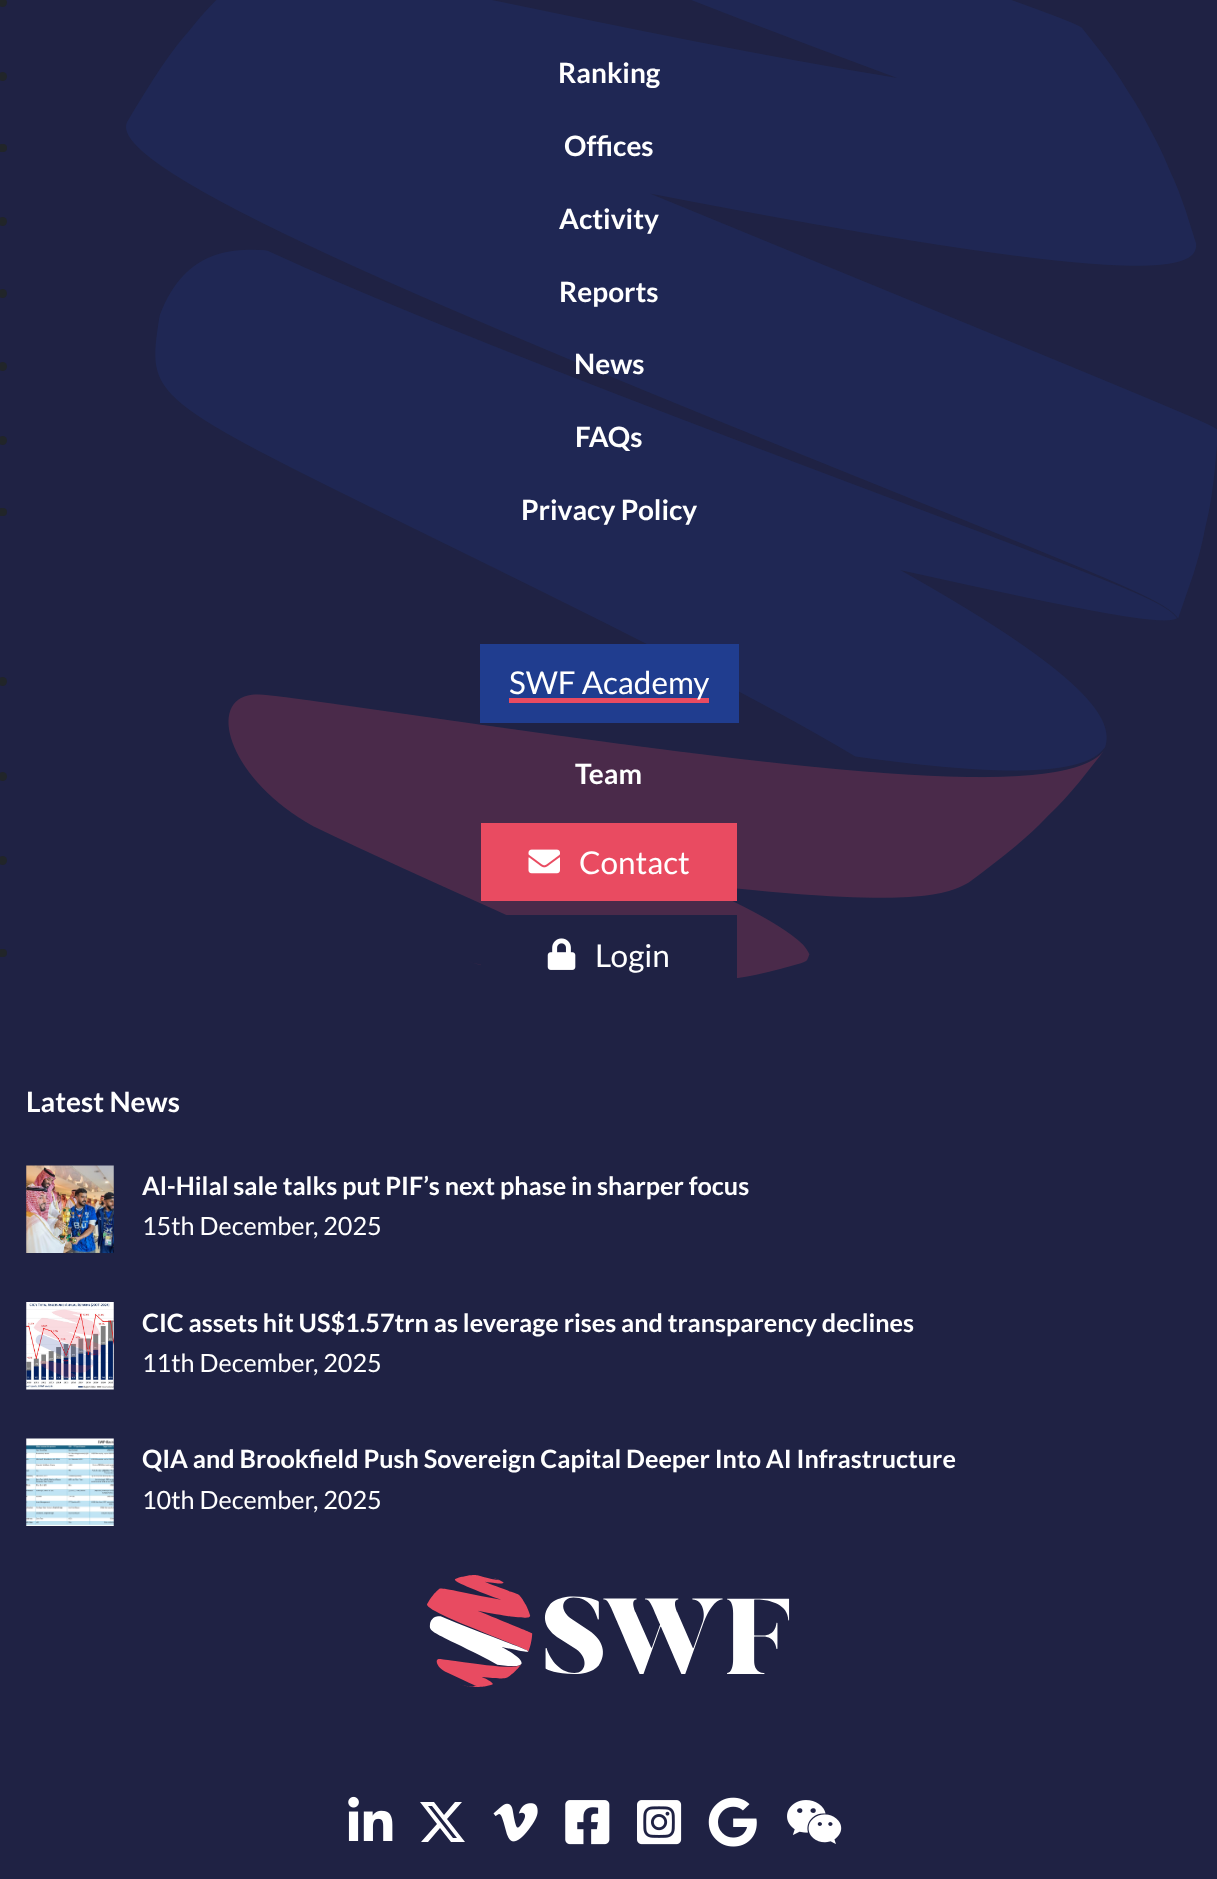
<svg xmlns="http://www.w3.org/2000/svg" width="1217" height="1879">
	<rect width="100%" height="100%" fill="#1F2244" />
	<image x="126" y="0" width="1091" height="978" href="assets/img1.png" />
	<circle cx="2.5" cy="2.5" r="4.5" fill="#212529" />
	<circle cx="2.5" cy="76.5" r="4.5" fill="#212529" />
	<text x="558" y="83" font-family="Lato" font-size="28" font-weight="700" fill="#FFFFFF">Ranking</text>
	<rect x="-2" y="144" width="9" height="8" rx="4" fill="#212529" />
	<text x="564" y="156" font-family="Lato" font-size="28" font-weight="700" fill="#FFFFFF">Offices</text>
	<circle cx="2.5" cy="221.5" r="4.5" fill="#212529" />
	<text x="559" y="229" font-family="Lato" font-size="28" font-weight="700" fill="#FFFFFF">Activity</text>
	<circle cx="2.5" cy="293.5" r="4.5" fill="#212529" />
	<text x="559" y="302" font-family="Lato" font-size="28" font-weight="700" fill="#FFFFFF">Reports</text>
	<circle cx="2.5" cy="366.5" r="4.5" fill="#212529" />
	<text x="574" y="374" font-family="Lato" font-size="28" font-weight="700" fill="#FFFFFF">News</text>
	<circle cx="2.5" cy="440.5" r="4.5" fill="#212529" />
	<text x="575" y="447" font-family="Lato" font-size="28" font-weight="700" fill="#FFFFFF">FAQs</text>
	<rect x="-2" y="508" width="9" height="8" rx="4" fill="#212529" />
	<text x="521" y="520" font-family="Lato" font-size="28" font-weight="700" fill="#FFFFFF">Privacy Policy</text>
	<circle cx="2.5" cy="681.5" r="4.5" fill="#212529" />
	<rect x="480" y="644" width="259" height="79" fill="#203D8F" />
	<rect x="509" y="698" width="200" height="5" fill="#E94B61" />
	<text x="509" y="694" font-family="Lato" font-size="31.5" fill="#FFFFFF">SWF Academy</text>
	<circle cx="2.5" cy="776.5" r="4.5" fill="#212529" />
	<text x="575" y="784" font-family="Lato" font-size="28" font-weight="700" fill="#FFFFFF">Team</text>
	<circle cx="2.5" cy="860.5" r="4.5" fill="#212529" />
	<rect x="481" y="823" width="256" height="78" fill="#E94B61" />
	<image x="528" y="849" width="32" height="25" href="assets/img2.png" />
	<text x="579" y="874" font-family="Lato" font-size="31.5" fill="#FFFFFF">Contact</text>
	<rect x="-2" y="949" width="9" height="8" rx="4" fill="#212529" />
	<rect x="481" y="915" width="256" height="63" fill="#1F2244" />
	<image x="547" y="938" width="29" height="32" href="assets/img3.png" />
	<text x="595" y="967" font-family="Lato" font-size="31.5" fill="#FFFFFF">Login</text>
	<text x="26" y="1112" font-family="Lato" font-size="28" font-weight="700" fill="#FFFFFF">Latest News</text>
	<image x="26" y="1165" width="88" height="88" href="assets/img4.png" />
	<text x="142" y="1195" font-family="Lato" font-size="25.2" font-weight="700" fill="#FFFFFF">Al-Hilal sale talks put PIF’s next phase in sharper focus</text>
	<text x="142" y="1235" font-family="Lato" font-size="25.2" fill="#FFFFFF">15th December, 2025</text>
	<image x="26" y="1302" width="88" height="88" href="assets/img5.png" />
	<text x="142" y="1332" font-family="Lato" font-size="25.2" font-weight="700" fill="#FFFFFF">CIC assets hit US$1.57trn as leverage rises and transparency declines</text>
	<text x="142" y="1372" font-family="Lato" font-size="25.2" fill="#FFFFFF">11th December, 2025</text>
	<image x="26" y="1438" width="88" height="88" href="assets/img6.png" />
	<text x="142" y="1468" font-family="Lato" font-size="25.2" font-weight="700" fill="#FFFFFF">QIA and Brookfield Push Sovereign Capital Deeper Into AI Infrastructure</text>
	<text x="142" y="1509" font-family="Lato" font-size="25.2" fill="#FFFFFF">10th December, 2025</text>
	<image x="427" y="1575" width="363" height="112" href="assets/img7.png" />
	<image x="348" y="1796" width="45" height="45" href="assets/img8.png" />
	<path d="M455 1802H462L447 1819L465 1842H451L440 1828L428 1842H421L437 1824L420 1802H434L444 1815ZM453 1838H457L432 1806H428Z" fill="#FFFFFF" />
	<image x="493" y="1803" width="45" height="39" href="assets/img9.png" />
	<image x="565" y="1800" width="45" height="45" href="assets/img10.png" />
	<image x="637" y="1800" width="45" height="45" href="assets/img11.png" />
	<image x="708" y="1797" width="49" height="50" href="assets/img12.png" />
	<image x="787" y="1800" width="55" height="44" href="assets/img13.png" />
</svg>
